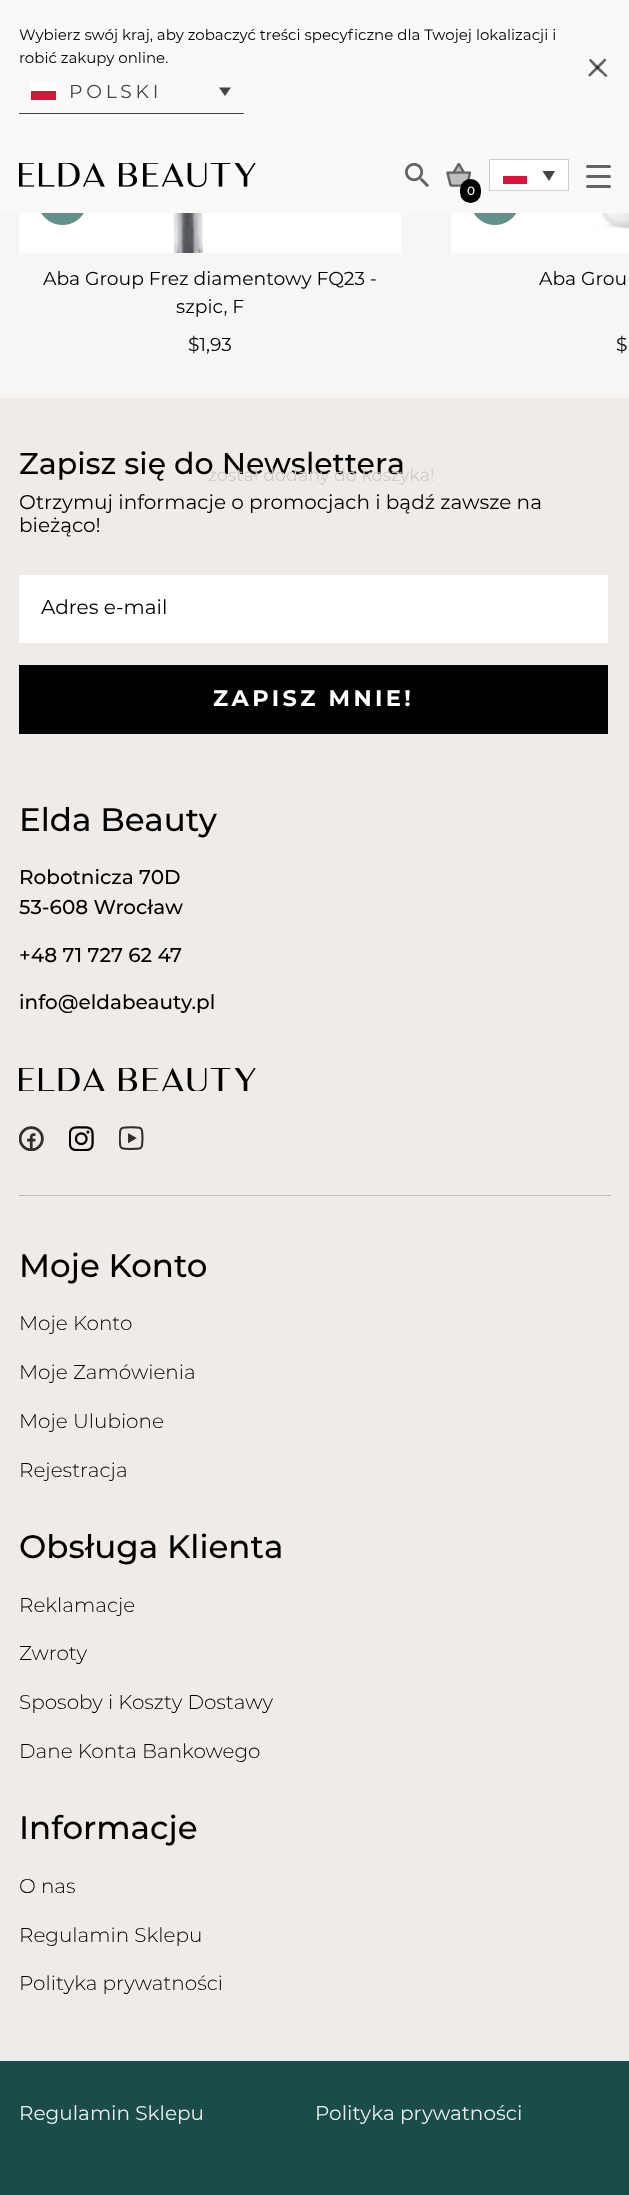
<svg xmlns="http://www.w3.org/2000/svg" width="629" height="2195">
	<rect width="100%" height="100%" fill="#F7F6F5" />
	<rect x="0" y="0" width="629" height="138" fill="#F9F9F9" />
	<g font-family="Montserrat" font-size="15" fill="#000000">
		<text x="19" y="40">Wybierz swój kraj, aby zobaczyć treści specyficzne dla Twojej lokalizacji i</text>
		<text x="19" y="63">robić zakupy online.</text>
	</g>
	<rect x="19" y="113" width="225" height="1" fill="#444444" />
	<rect x="31" y="81" width="25" height="10" fill="#FFFFFF" />
	<rect x="31" y="91" width="25" height="9" fill="#DC143C" />
	<text x="69" y="98" font-family="Montserrat" font-size="18.75" letter-spacing="3.75" fill="#444444">POLSKI</text>
	<path d="M219 87.5H231L225 96Z" fill="#444444" />
	<path d="M591.5 59.5L607 75C608 76 606.5 77.5 605 76.5L602.5 74C600.5 72.5 589 61.5 589 60C589.5 59 590.5 58.5 591.5 59.5Z" fill="#646464" />
	<path d="M588.5 74.5L604 59C605 58 607 59.5 606 60.5L603.5 63.5C601.5 65 590.5 77 589.5 76.5C588.5 76.5 588 75 588.5 74.5Z" fill="#000000" fill-opacity="0.6" />
	<rect x="0" y="138" width="629" height="75" fill="#FAF9F8" />
	<image x="19" y="163" width="237" height="25" href="assets/img1.png" />
	<image x="405" y="163" width="24" height="24" href="assets/img2.png" />
	<rect x="489.5" y="159.5" width="79" height="31" fill="#FFFFFF" stroke="#CDCDCD" />
	<rect x="503" y="176" width="24" height="8" fill="#DC143C" />
	<path d="M542.5 171H555L549 181Z" fill="#444444" />
	<rect x="586" y="165" width="25" height="3" rx="1.5" fill="#646463" />
	<rect x="586" y="175" width="25" height="3" rx="1.5" fill="#646463" />
	<rect x="586" y="185" width="25" height="3" rx="1.5" fill="#646463" />
	<image x="446" y="163" width="25" height="24" href="assets/img3.png" />
	<rect x="460" y="179" width="21" height="24" rx="10.5" fill="#000000" />
	<text x="467" y="195" font-family="Montserrat" font-size="12" font-weight="500" fill="#FFFFFF">0</text>
	<image x="19" y="213" width="382" height="40" href="assets/img4.png" />
	<image x="41" y="213" width="43" height="12" href="assets/img5.png" />
	<g font-family="Montserrat" font-size="18.75" fill="#000000">
		<text x="43" y="285">Aba Group Frez diamentowy FQ23 -</text>
		<text x="176" y="313">szpic, F</text>
		<text x="188" y="351">$1,93</text>
	</g>
	<image x="451" y="213" width="178" height="40" href="assets/img6.png" />
	<image x="473" y="213" width="44" height="12" href="assets/img7.png" />
	<g font-family="Montserrat" font-size="18.75" fill="#000000">
		<text x="539" y="285">Aba Grou</text>
		<text x="616" y="351">$</text>
	</g>
	<rect x="0" y="398" width="629" height="1663" fill="#EFEBE8" />
	<text x="19" y="474" font-family="Montserrat" font-size="30" font-weight="500" fill="#000000">Zapisz się do Newslettera</text>
	<g font-family="Montserrat" font-size="20" fill="#000000">
		<text x="19" y="509">Otrzymuj informacje o promocjach i bądź zawsze na</text>
		<text x="19" y="532">bieżąco!</text>
	</g>
	<rect x="19" y="575" width="589" height="68" fill="#FFFFFF" />
	<text x="41" y="614" font-family="Montserrat" font-size="20" fill="#000000">Adres e-mail</text>
	<rect x="19" y="665" width="589" height="69" fill="#000000" />
	<text x="213" y="706" font-family="Montserrat" font-size="22.5" font-weight="700" letter-spacing="3.4" fill="#FFFFFF">ZAPISZ MNIE!</text>
	<text x="19" y="831" font-family="Montserrat" font-size="32.5" font-weight="500" fill="#000000">Elda Beauty</text>
	<g font-family="Montserrat" font-size="20" font-weight="500" fill="#000000">
		<text x="19" y="884">Robotnicza 70D</text>
		<text x="19" y="914">53-608 Wrocław</text>
		<text x="19" y="962">+48 71 727 62 47</text>
		<text x="19" y="1009">info@eldabeauty.pl</text>
	</g>
	<image x="19" y="1068" width="237" height="23" href="assets/img8.png" />
	<rect x="19" y="1195" width="592" height="1" fill="#BFBCBA" />
	<image x="19" y="1126" width="25" height="25" href="assets/img9.png" />
	<image x="69" y="1126" width="25" height="25" href="assets/img10.png" />
	<image x="119" y="1126" width="25" height="24" href="assets/img11.png" />
	<text x="19" y="1277" font-family="Montserrat" font-size="32.5" font-weight="500" fill="#000000">Moje Konto</text>
	<g font-family="Montserrat" font-size="20" font-weight="300" fill="#000000">
		<text x="19" y="1330">Moje Konto</text>
		<text x="19" y="1379">Moje Zamówienia</text>
		<text x="19" y="1428">Moje Ulubione</text>
		<text x="19" y="1477">Rejestracja</text>
	</g>
	<text x="19" y="1558" font-family="Montserrat" font-size="32.5" font-weight="500" fill="#000000">Obsługa Klienta</text>
	<g font-family="Montserrat" font-size="20" font-weight="300" fill="#000000">
		<text x="19" y="1612">Reklamacje</text>
		<text x="19" y="1660">Zwroty</text>
		<text x="19" y="1709">Sposoby i Koszty Dostawy</text>
		<text x="19" y="1758">Dane Konta Bankowego</text>
	</g>
	<text x="19" y="1839" font-family="Montserrat" font-size="32.5" font-weight="500" fill="#000000">Informacje</text>
	<g font-family="Montserrat" font-size="20" font-weight="300" fill="#000000">
		<text x="19" y="1893">O nas</text>
		<text x="19" y="1942">Regulamin Sklepu</text>
		<text x="19" y="1990">Polityka prywatności</text>
	</g>
	<rect x="0" y="2061" width="629" height="134" fill="#1A4C49" />
	<g font-family="Montserrat" font-size="20" fill="#E8EDED">
		<text x="19" y="2120">Regulamin Sklepu</text>
		<text x="315" y="2120">Polityka prywatności</text>
	</g>
	<text x="208" y="481" font-family="Montserrat" font-size="17.5" fill="#D0CDCA">został dodany do koszyka!</text>
</svg>
